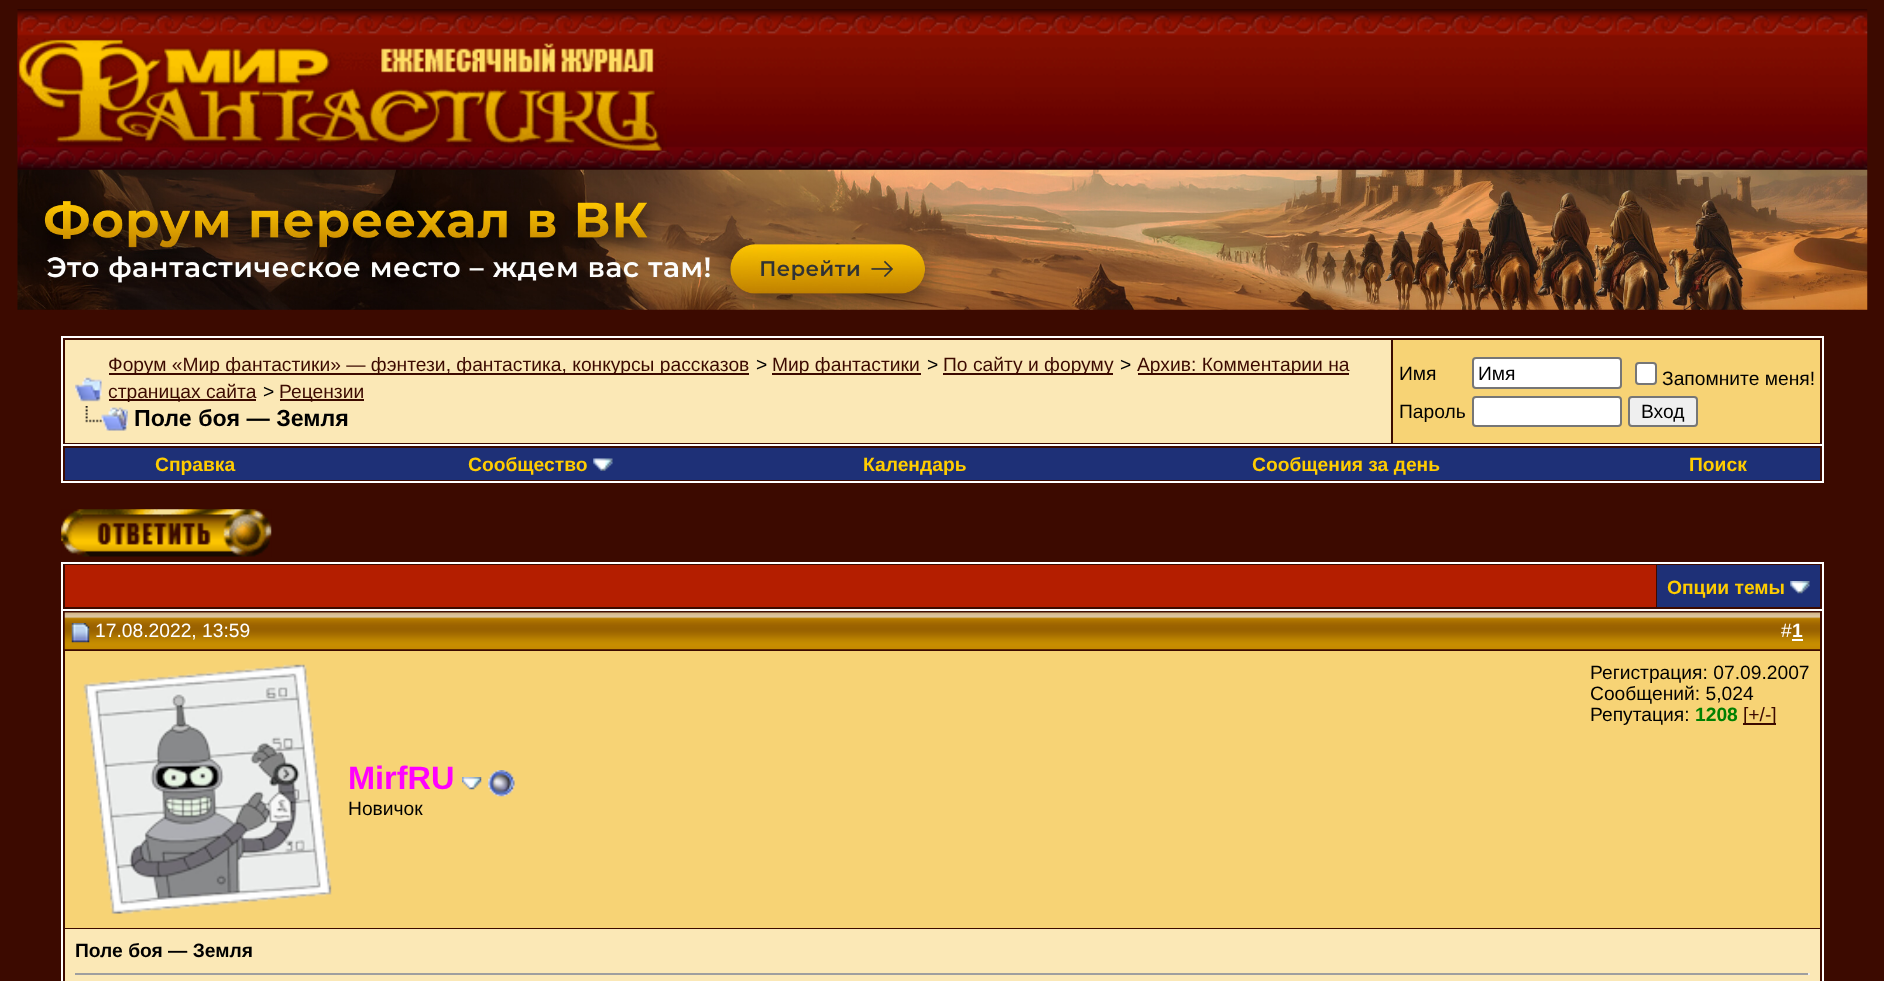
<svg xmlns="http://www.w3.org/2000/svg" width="1884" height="981">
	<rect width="100%" height="100%" fill="#3C0A00" />
	<image x="17" y="9" width="1851" height="161" href="assets/img1.png" />
	<image x="17" y="38" width="650" height="113" href="assets/img2.png" />
	<image x="17" y="169" width="1851" height="141" href="assets/img3.png" />
	<rect x="62" y="337" width="1761" height="108" fill="none" stroke="#FFFFFF" stroke-width="2" />
	<rect x="65" y="340" width="1326" height="103" fill="#FBE8B6" />
	<image x="75" y="377" width="27" height="25" href="assets/img4.png" />
	<rect x="109" y="373" width="640" height="2" fill="#3C0A00" />
	<text x="108" y="371" font-family="Liberation Sans" font-size="19.25" fill="#3C0A00">Форум «Мир фантастики» — фэнтези, фантастика, конкурсы рассказов</text>
	<text x="756" y="371" font-family="Liberation Sans" font-size="19.25" fill="#000000">&gt;</text>
	<rect x="772" y="373" width="149" height="2" fill="#3C0A00" />
	<text x="772" y="371" font-family="Liberation Sans" font-size="19.25" fill="#3C0A00">Мир фантастики</text>
	<text x="927" y="371" font-family="Liberation Sans" font-size="19.25" fill="#000000">&gt;</text>
	<rect x="943" y="373" width="170" height="2" fill="#3C0A00" />
	<text x="943" y="371" font-family="Liberation Sans" font-size="19.25" fill="#3C0A00">По сайту и форуму</text>
	<text x="1120" y="371" font-family="Liberation Sans" font-size="19.25" fill="#000000">&gt;</text>
	<rect x="1138" y="373" width="211" height="2" fill="#3C0A00" />
	<text x="1137" y="371" font-family="Liberation Sans" font-size="19.25" fill="#3C0A00">Архив: Комментарии на</text>
	<rect x="109" y="399" width="147" height="2" fill="#3C0A00" />
	<text x="108" y="398" font-family="Liberation Sans" font-size="19.25" fill="#3C0A00">страницах сайта</text>
	<text x="263" y="398" font-family="Liberation Sans" font-size="19.25" fill="#000000">&gt;</text>
	<rect x="280" y="399" width="84" height="2" fill="#3C0A00" />
	<text x="279" y="398" font-family="Liberation Sans" font-size="19.25" fill="#3C0A00">Рецензии</text>
	<image x="85" y="406" width="43" height="25" href="assets/img5.png" />
	<text x="134" y="426" font-family="Liberation Sans" font-size="23.25" font-weight="700" fill="#000000">Поле боя — Земля</text>
	<rect x="1393" y="340" width="427" height="103" fill="#F7D375" />
	<text x="1399" y="380" font-family="Liberation Sans" font-size="19.25" fill="#000000">Имя</text>
	<rect x="1473" y="358" width="148" height="30" rx="3" fill="#FFFFFF" stroke="#767676" stroke-width="2" />
	<text x="1478" y="380" font-family="Liberation Sans" font-size="19.25" fill="#000000">Имя</text>
	<rect x="1636" y="363" width="20" height="21" rx="3" fill="#FFFFFF" stroke="#767676" stroke-width="2" />
	<g font-family="Liberation Sans" font-size="19.25" fill="#000000">
		<text x="1662" y="385">Запомните меня!</text>
		<text x="1399" y="418">Пароль</text>
	</g>
	<rect x="1473" y="397" width="148" height="29" rx="3" fill="#FFFFFF" stroke="#767676" stroke-width="2" />
	<rect x="1629" y="397" width="68" height="29" rx="3" fill="#EFEFEF" stroke="#767676" stroke-width="2" />
	<text x="1641" y="418" font-family="Liberation Sans" font-size="19.25" fill="#000000">Вход</text>
	<rect x="1822" y="446" width="2" height="37" fill="#FFFFFF" />
	<rect x="61" y="481" width="1763" height="2" fill="#FFFFFF" />
	<rect x="61" y="446" width="2" height="37" fill="#FFFFFF" />
	<rect x="65" y="448" width="1755" height="32" fill="#1E3077" />
	<g font-family="Liberation Sans" font-size="19.25" font-weight="700" fill="#FFCC00">
		<text x="155" y="471">Справка</text>
		<text x="468" y="471">Сообщество</text>
	</g>
	<image x="593" y="458" width="20" height="13" href="assets/img6.png" />
	<g font-family="Liberation Sans" font-size="19.25" font-weight="700" fill="#FFCC00">
		<text x="863" y="471">Календарь</text>
		<text x="1252" y="471">Сообщения за день</text>
		<text x="1689" y="471">Поиск</text>
	</g>
	<image x="61" y="509" width="211" height="48" href="assets/img7.png" />
	<rect x="61" y="562" width="1763" height="2" fill="#FFFFFF" />
	<rect x="1822" y="562" width="2" height="47" fill="#FFFFFF" />
	<rect x="61" y="562" width="2" height="47" fill="#FFFFFF" />
	<rect x="65" y="565" width="1591" height="42" fill="#B41E00" />
	<rect x="1657" y="565" width="163" height="42" fill="#1E3077" />
	<text x="1667" y="594" font-family="Liberation Sans" font-size="19.25" font-weight="700" fill="#FFCC00">Опции темы</text>
	<image x="1790" y="581" width="20" height="13" href="assets/img8.png" />
	<rect x="62" y="610" width="1761" height="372" fill="none" stroke="#FFFFFF" stroke-width="2" />
	<image x="64" y="612" width="1756" height="38" href="assets/img9.png" />
	<image x="71" y="623" width="19" height="20" href="assets/img10.png" />
	<g font-family="Liberation Sans" font-size="19.25" fill="#FFFFFF">
		<text x="95" y="637">17.08.2022, 13:59</text>
		<text x="1781" y="637">#</text>
	</g>
	<text x="1792" y="637" font-family="Liberation Sans" font-size="19.25" font-weight="700" fill="#FFFFFF">1</text>
	<rect x="1792" y="639" width="11" height="2" fill="#FFFFFF" />
	<rect x="65" y="651" width="1755" height="277" fill="#F7D375" />
	<image x="83" y="664" width="249" height="250" href="assets/img11.png" />
	<g font-family="Liberation Sans" font-size="19.25" fill="#000000">
		<text x="1590" y="679">Регистрация: 07.09.2007</text>
		<text x="1590" y="700">Сообщений: 5,024</text>
		<text x="1590" y="721">Репутация:</text>
	</g>
	<text x="1695" y="721" font-family="Liberation Sans" font-size="19.25" font-weight="700" fill="#008000">1208</text>
	<rect x="1743" y="723" width="33" height="2" fill="#3C0A00" />
	<text x="1743" y="721" font-family="Liberation Sans" font-size="19.25" fill="#3C0A00">[+/-]</text>
	<text x="348" y="789" font-family="Liberation Sans" font-size="32.5" font-weight="700" fill="#FF00FF">MirfRU</text>
	<image x="462" y="777" width="20" height="13" href="assets/img12.png" />
	<image x="488" y="770" width="27" height="27" href="assets/img13.png" />
	<text x="348" y="815" font-family="Liberation Sans" font-size="19.25" fill="#000000">Новичок</text>
	<rect x="65" y="929" width="1755" height="52" fill="#FBE8B6" />
	<text x="75" y="957" font-family="Liberation Sans" font-size="19.25" font-weight="700" fill="#000000">Поле боя — Земля</text>
	<rect x="75" y="973" width="1735" height="2" fill="#9F9F9F" />
	<rect x="1808" y="973" width="2" height="2" fill="#EEEEEE" />
</svg>
